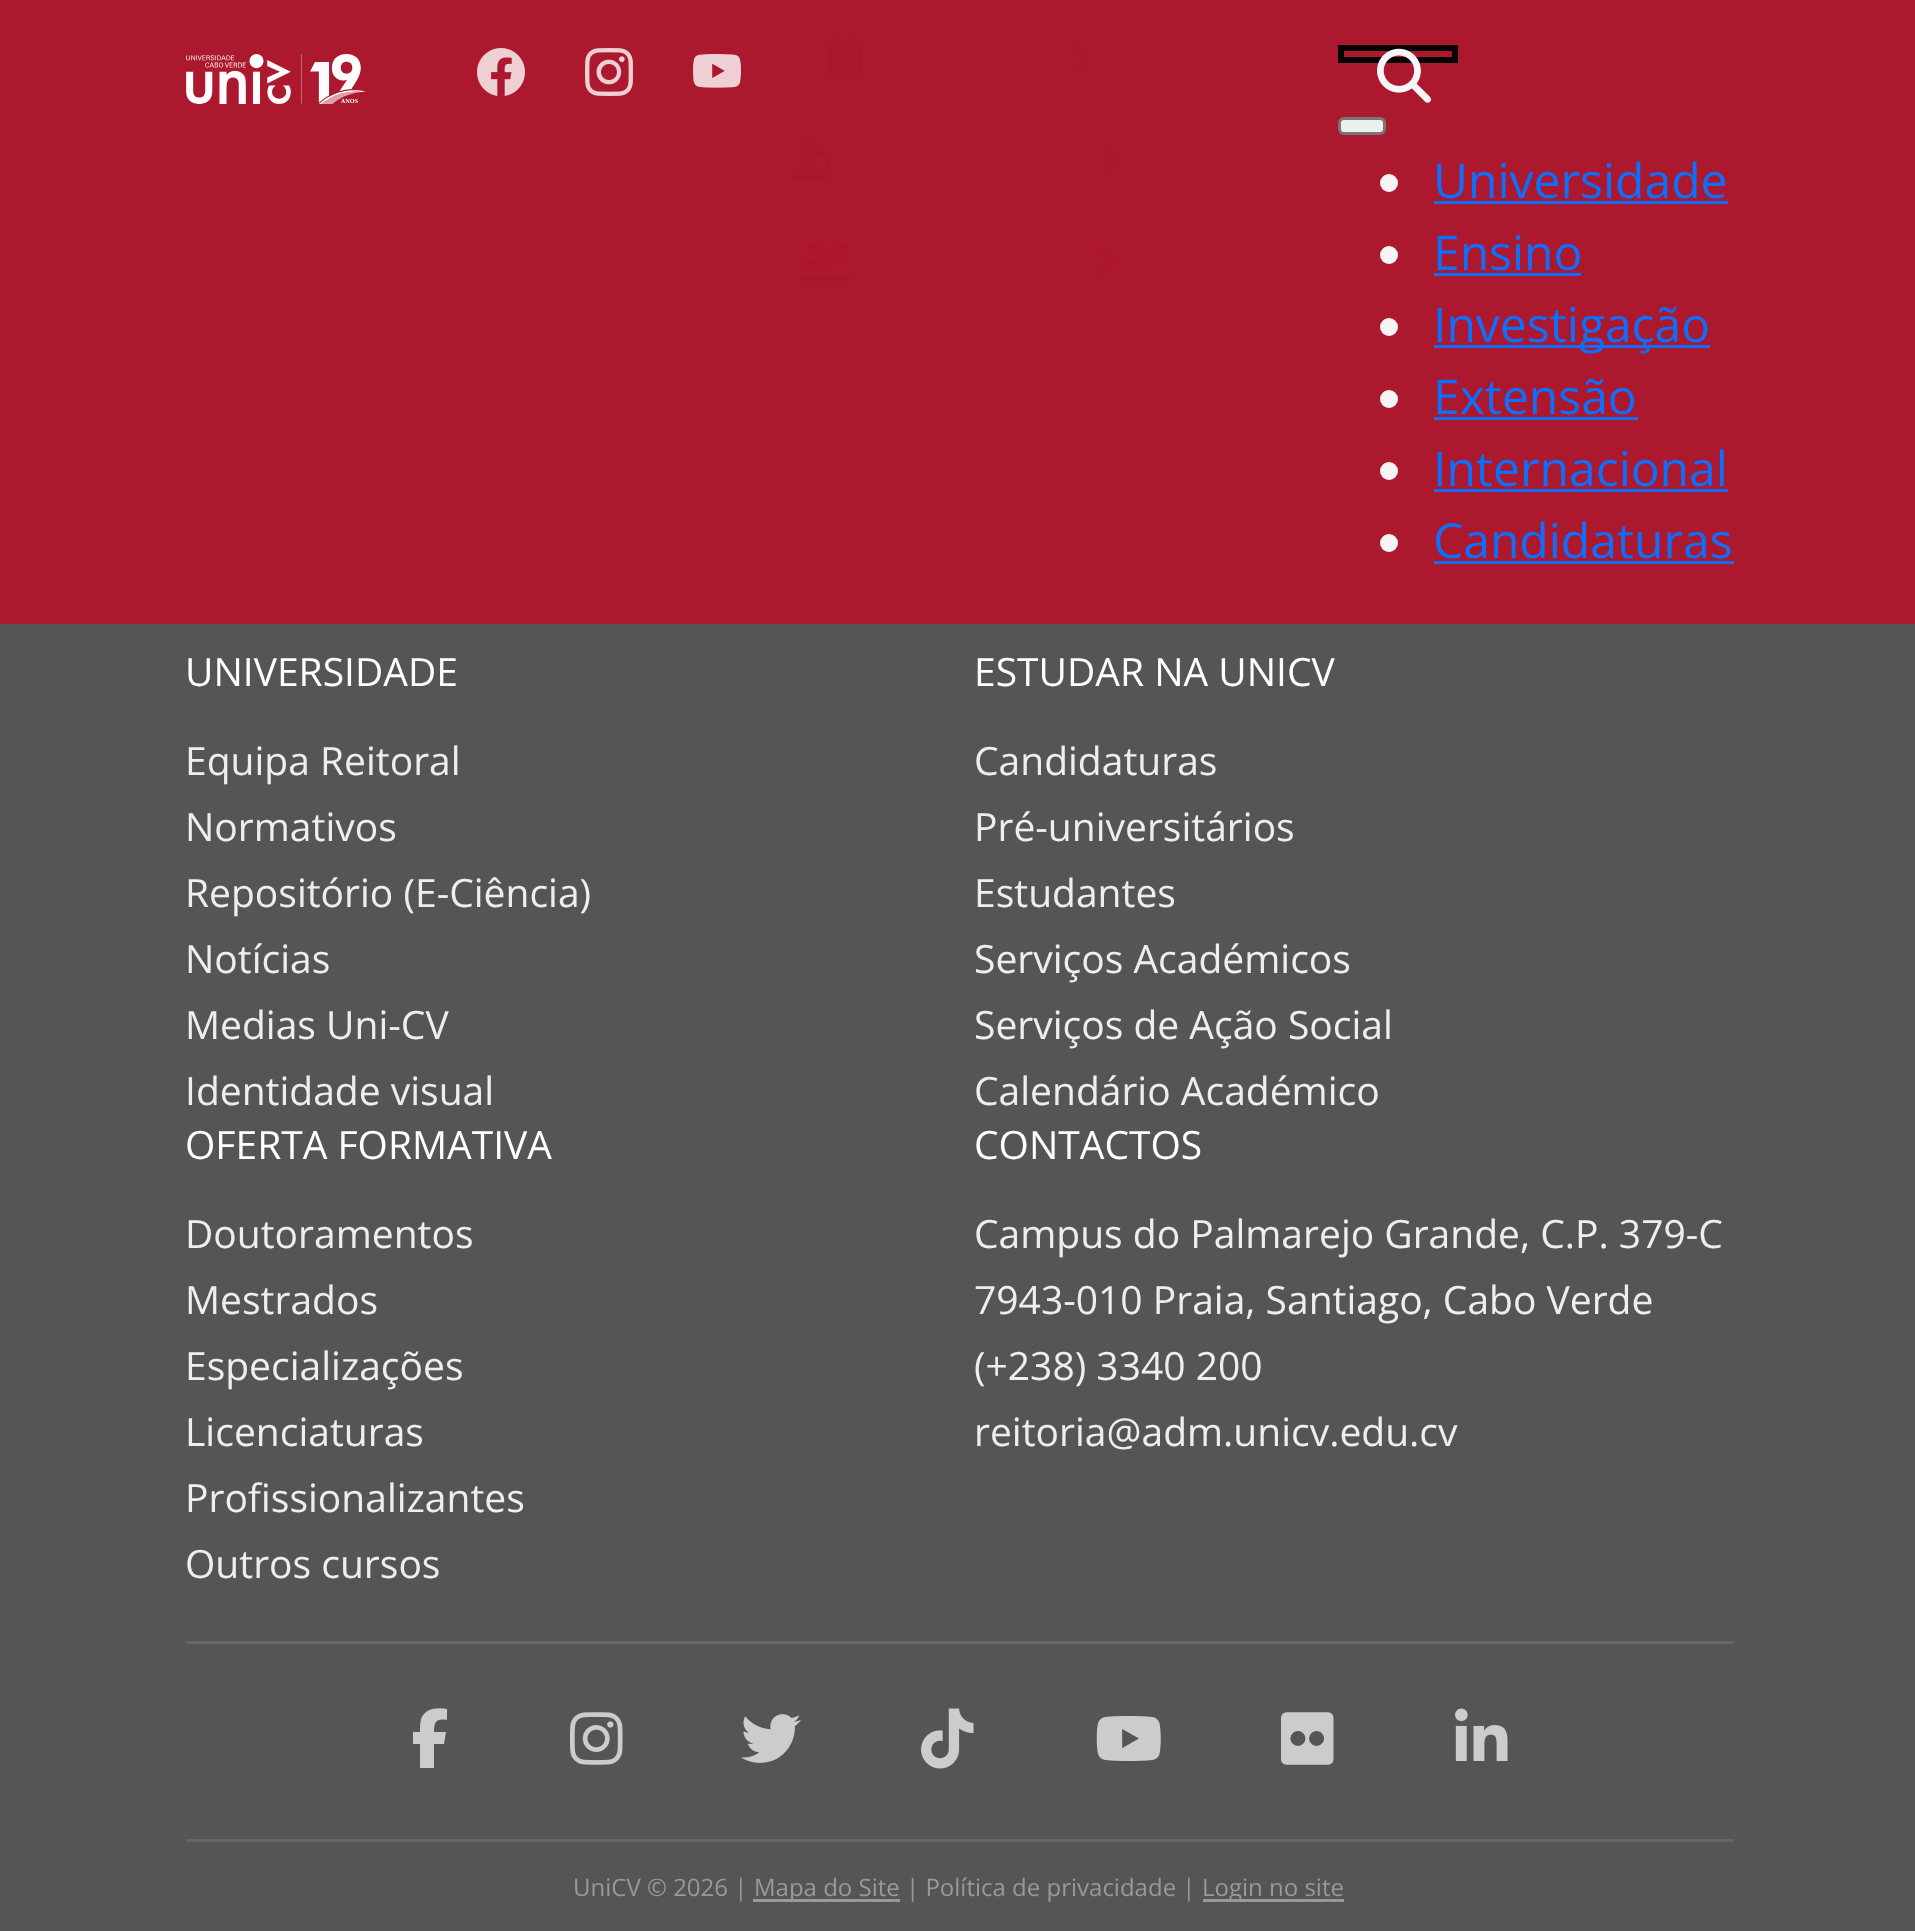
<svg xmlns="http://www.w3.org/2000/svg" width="1915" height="1931">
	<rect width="100%" height="100%" fill="#AC182D" />
	<image x="828" y="37" width="35" height="40" href="assets/img1.png" />
	<image x="1072" y="45" width="17" height="27" href="assets/img2.png" />
	<image x="792" y="139" width="39" height="40" href="assets/img3.png" />
	<image x="1105" y="147" width="17" height="27" href="assets/img2.png" />
	<image x="801" y="244" width="49" height="37" href="assets/img4.png" />
	<image x="1099" y="249" width="17" height="27" href="assets/img5.png" />
	<image x="186" y="54" width="180" height="50" href="assets/img6.png" />
	<image x="477" y="48" width="48" height="48" href="assets/img7.png" />
	<image x="585" y="48" width="48" height="48" href="assets/img8.png" />
	<image x="693" y="53" width="48" height="35" href="assets/img9.png" />
	<rect x="1341" y="48" width="114" height="12" fill="none" stroke="#030303" stroke-width="6" />
	<image x="1377" y="48" width="54" height="55" href="assets/img10.png" />
	<rect x="1339.5" y="118.5" width="45" height="15" rx="4.5" fill="#EFEFEF" stroke="#777777" stroke-width="3" />
	<circle cx="1389" cy="183" r="9" fill="#F5F5F5" />
	<text x="1433" y="198" font-family="Open Sans" font-size="48" fill="#0F6FFD">Universidade</text>
	<rect x="1434" y="201" width="294" height="3" fill="#0F6FFD" />
	<circle cx="1389" cy="255" r="9" fill="#F5F5F5" />
	<text x="1433" y="270" font-family="Open Sans" font-size="48" fill="#0F6FFD">Ensino</text>
	<rect x="1434" y="273" width="147" height="3" fill="#0F6FFD" />
	<circle cx="1389" cy="327" r="9" fill="#F5F5F5" />
	<rect x="1434" y="345" width="276" height="3" fill="#0F6FFD" />
	<text x="1433" y="342" font-family="Open Sans" font-size="48" fill="#0F6FFD">Investigação</text>
	<circle cx="1389" cy="399" r="9" fill="#F5F5F5" />
	<text x="1433" y="414" font-family="Open Sans" font-size="48" fill="#0F6FFD">Extensão</text>
	<rect x="1434" y="417" width="204" height="3" fill="#0F6FFD" />
	<circle cx="1389" cy="471" r="9" fill="#F5F5F5" />
	<text x="1433" y="486" font-family="Open Sans" font-size="48" fill="#0F6FFD">Internacional</text>
	<rect x="1434" y="489" width="294" height="3" fill="#0F6FFD" />
	<circle cx="1389" cy="543" r="9" fill="#F5F5F5" />
	<text x="1433" y="558" font-family="Open Sans" font-size="48" fill="#0F6FFD">Candidaturas</text>
	<rect x="1434" y="561" width="300" height="3" fill="#0F6FFD" />
	<rect x="0" y="624" width="1915" height="1307" fill="#555555" />
	<text x="185" y="686" font-family="Open Sans" font-size="39" fill="#FFFFFF">UNIVERSIDADE</text>
	<g font-family="Open Sans" font-size="39" fill="#EEEEEE">
		<text x="185" y="775">Equipa Reitoral</text>
		<text x="185" y="841">Normativos</text>
		<text x="185" y="907">Repositório (E-Ciência)</text>
		<text x="185" y="973">Notícias</text>
		<text x="185" y="1039">Medias Uni-CV</text>
		<text x="185" y="1105">Identidade visual</text>
	</g>
	<text x="974" y="686" font-family="Open Sans" font-size="39" fill="#FFFFFF">ESTUDAR NA UNICV</text>
	<g font-family="Open Sans" font-size="39" fill="#EEEEEE">
		<text x="974" y="775">Candidaturas</text>
		<text x="974" y="841">Pré-universitários</text>
		<text x="974" y="907">Estudantes</text>
		<text x="974" y="973">Serviços Académicos</text>
		<text x="974" y="1039">Serviços de Ação Social</text>
		<text x="974" y="1105">Calendário Académico</text>
	</g>
	<text x="185" y="1159" font-family="Open Sans" font-size="39" fill="#FFFFFF">OFERTA FORMATIVA</text>
	<g font-family="Open Sans" font-size="39" fill="#EEEEEE">
		<text x="185" y="1248">Doutoramentos</text>
		<text x="185" y="1314">Mestrados</text>
		<text x="185" y="1380">Especializações</text>
		<text x="185" y="1446">Licenciaturas</text>
		<text x="185" y="1512">Profissionalizantes</text>
		<text x="185" y="1578">Outros cursos</text>
	</g>
	<text x="974" y="1159" font-family="Open Sans" font-size="39" fill="#FFFFFF">CONTACTOS</text>
	<g font-family="Open Sans" font-size="39" fill="#EEEEEE">
		<text x="974" y="1248">Campus do Palmarejo Grande, C.P. 379-C</text>
		<text x="974" y="1314">7943-010 Praia, Santiago, Cabo Verde</text>
		<text x="974" y="1380">(+238) 3340 200</text>
		<text x="974" y="1446">reitoria@adm.unicv.edu.cv</text>
	</g>
	<rect x="186" y="1641" width="1548" height="3" fill="#666666" />
	<rect x="186" y="1839" width="1548" height="3" fill="#666666" />
	<path d="M420 1744V1768V1744V1768H434V1744H444L446 1732H434C434 1722 436 1718 447 1720V1709C437 1707 425 1708 421 1719C420 1723 420 1728 420 1732H413V1744Z" fill="#CCCCCC" />
	<image x="570" y="1712" width="53" height="53" href="assets/img11.png" />
	<image x="741" y="1714" width="60" height="49" href="assets/img12.png" />
	<image x="921" y="1708" width="53" height="61" href="assets/img13.png" />
	<image x="1096" y="1716" width="65" height="45" href="assets/img14.png" />
	<image x="1281" y="1712" width="53" height="53" href="assets/img15.png" />
	<image x="1455" y="1708" width="53" height="53" href="assets/img16.png" />
	<text x="573" y="1896" font-family="Open Sans" font-size="24" fill="#999999">UniCV © 2026 |</text>
	<rect x="753" y="1899" width="147" height="3" fill="#999999" />
	<text x="754" y="1896" font-family="Open Sans" font-size="24" fill="#999999">Mapa do Site | Política de privacidade |</text>
	<rect x="1203" y="1899" width="141" height="3" fill="#999999" />
	<text x="1202" y="1896" font-family="Open Sans" font-size="24" fill="#999999">Login no site</text>
</svg>
